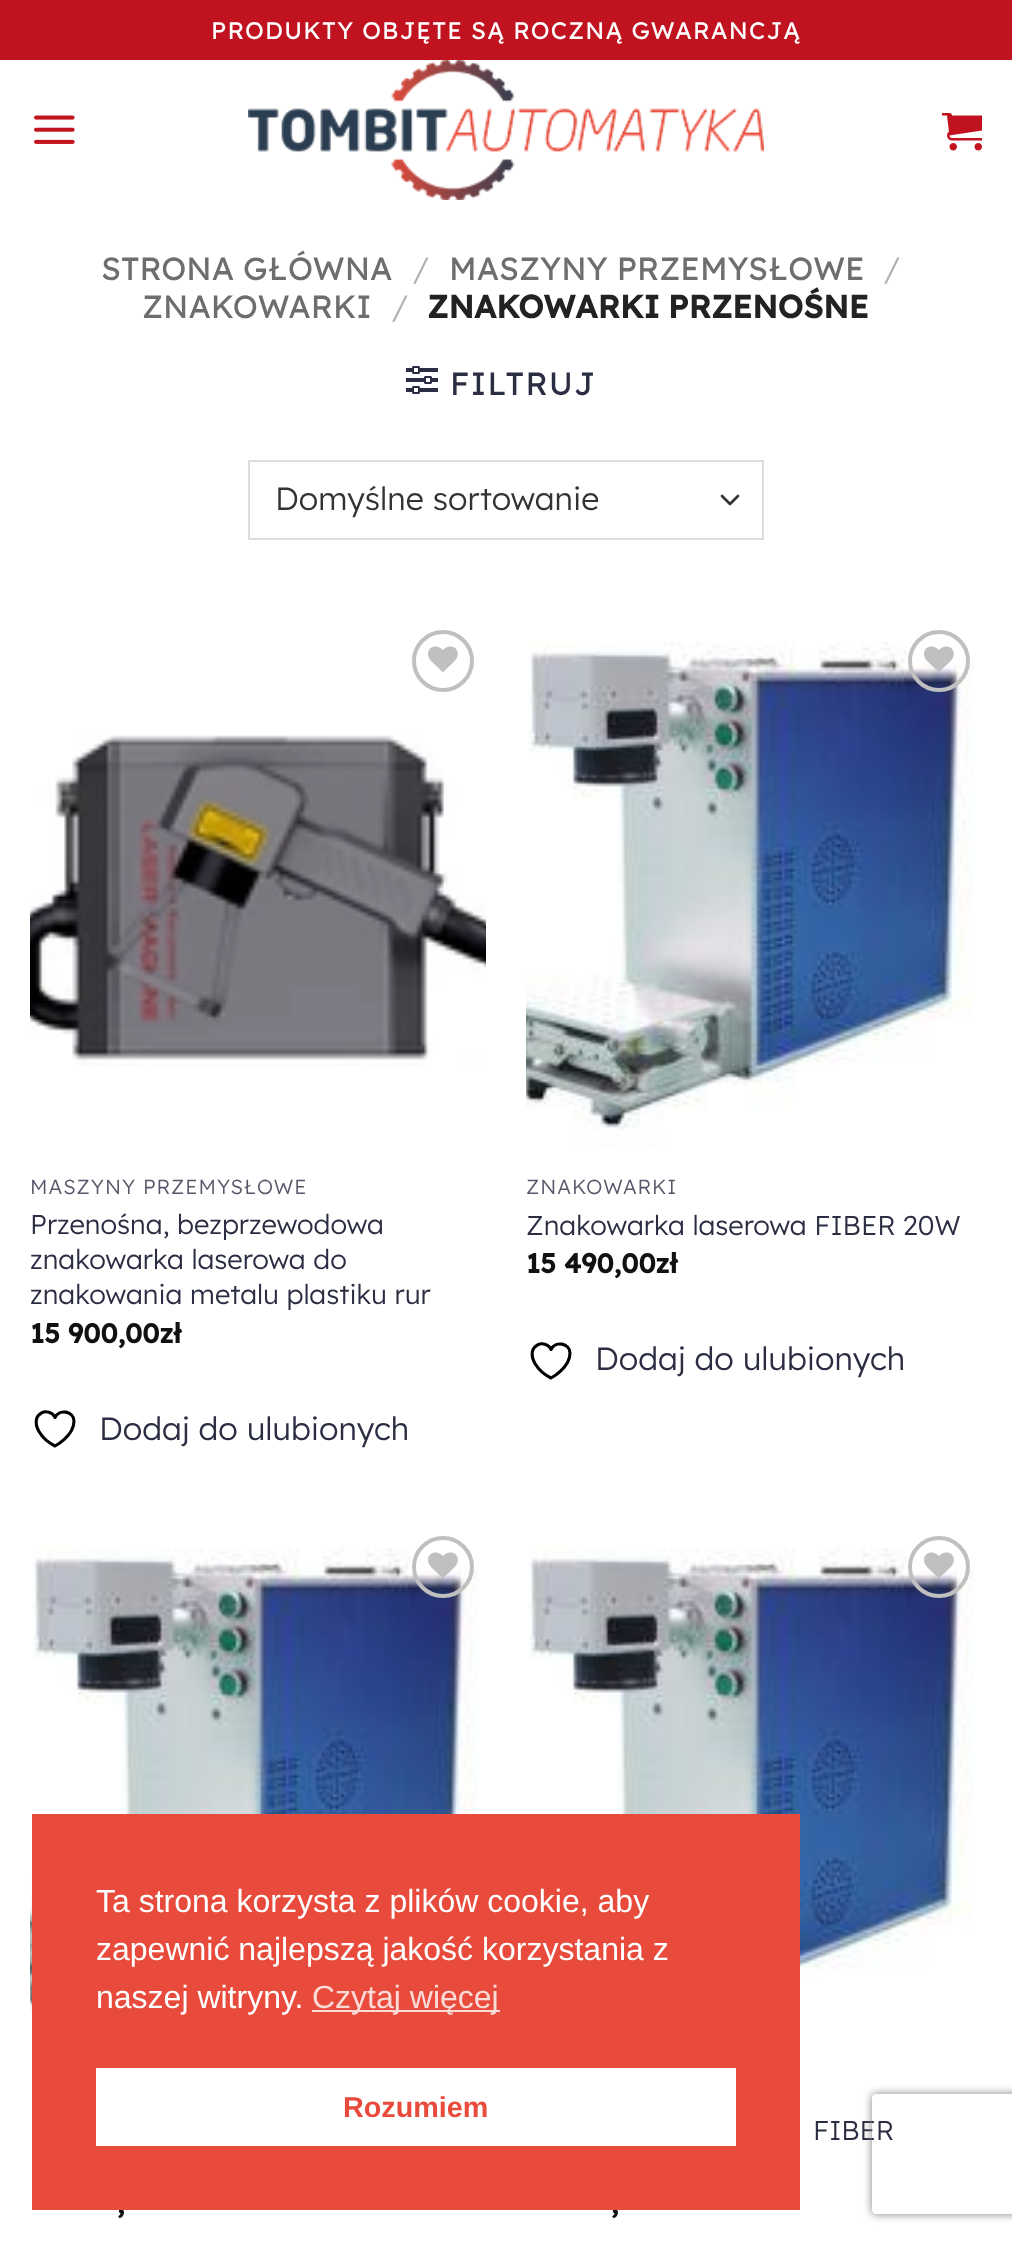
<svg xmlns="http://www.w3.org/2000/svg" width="1012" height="2241">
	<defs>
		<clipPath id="clip1"><path d="M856 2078H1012V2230H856ZM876 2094H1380C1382 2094 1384 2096 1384 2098V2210C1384 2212 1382 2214 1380 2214H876C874 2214 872 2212 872 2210V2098C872 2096 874 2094 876 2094Z" clip-rule="evenodd" /></clipPath>
	</defs>
	<rect width="100%" height="100%" fill="#FFFFFF" />
	<rect x="0" y="0" width="1012" height="60" fill="#C1121F" />
	<text x="211" y="39" font-family="Lexend" font-size="24" letter-spacing="1.2" fill="#FFFFFF">PRODUKTY OBJĘTE SĄ ROCZNĄ GWARANCJĄ</text>
	<image x="34" y="115" width="41" height="29" href="assets/img1.png" />
	<image x="248" y="60" width="516" height="140" href="assets/img2.png" />
	<image x="942" y="113" width="40" height="38" href="assets/img3.png" />
	<text x="101" y="280" font-family="Lexend" font-size="32" fill="#6E6E6E">STRONA GŁÓWNA</text>
	<text x="412" y="280" font-family="Lexend" font-size="32" font-weight="300" fill="#B2B2B2">/</text>
	<text x="449" y="280" font-family="Lexend" font-size="32" fill="#6E6E6E">MASZYNY PRZEMYSŁOWE</text>
	<text x="883" y="280" font-family="Lexend" font-size="32" font-weight="300" fill="#B2B2B2">/</text>
	<text x="142" y="318" font-family="Lexend" font-size="32" fill="#6E6E6E">ZNAKOWARKI</text>
	<text x="391" y="318" font-family="Lexend" font-size="32" font-weight="300" fill="#B2B2B2">/</text>
	<text x="427" y="318" word-spacing="-1" font-family="Lexend" font-size="32" font-weight="700" fill="#222222">ZNAKOWARKI PRZENOŚNE</text>
	<image x="406" y="366" width="32" height="28" href="assets/img4.png" />
	<text x="450" y="395" font-family="Lexend" font-size="32" letter-spacing="1.5" fill="#2B2D42">FILTRUJ</text>
	<path d="M722 496L730 504L738 496" fill="none" stroke="#333333" stroke-width="2.7" stroke-linecap="round" stroke-linejoin="round" />
	<rect x="249" y="461" width="514" height="78" fill="none" stroke="#DDDDDD" stroke-width="2" />
	<text x="275" y="510" font-family="Lexend" font-size="32" font-weight="300" fill="#333333">Domyślne sortowanie</text>
	<circle cx="443" cy="661" r="29" fill="none" stroke="#C0C0C0" stroke-width="4" />
	<image x="428" y="646" width="30" height="26" href="assets/img5.png" />
	<image x="30" y="735" width="456" height="331" href="assets/img6.png" />
	<text x="30" y="1194" font-family="Lexend" font-size="20.4" font-weight="300" letter-spacing="1" fill="#555768">MASZYNY PRZEMYSŁOWE</text>
	<g font-family="Lexend" font-size="27.25" font-weight="300" fill="#2B2D42">
		<text x="30" y="1234">Przenośna, bezprzewodowa</text>
		<text x="30" y="1269">znakowarka laserowa do</text>
		<text x="30" y="1304">znakowania metalu plastiku rur</text>
	</g>
	<text x="30" y="1343" font-family="Lexend" font-size="27.25" font-weight="700" fill="#111111">15 900,00zł</text>
	<text x="99" y="1440" font-family="Lexend" font-size="32" font-weight="300" fill="#2B2D42">Dodaj do ulubionych</text>
	<path d="M74 1421C74 1411 59 1408.5 55 1417.5C50 1406 28.5 1412.5 39 1431.5C42.5 1437.5 49 1443 55 1446C55 1446 74 1436 74 1421Z" fill="none" stroke="#000000" stroke-width="3.1" stroke-linecap="round" stroke-linejoin="round" />
	<image x="526" y="641" width="448" height="507" href="assets/img8.png" />
	<circle cx="939" cy="661" r="29" fill="none" stroke="#C0C0C0" stroke-width="4" />
	<image x="924" y="646" width="30" height="26" href="assets/img7.png" />
	<text x="526" y="1194" font-family="Lexend" font-size="20.4" font-weight="300" letter-spacing="1" fill="#555768">ZNAKOWARKI</text>
	<text x="526" y="1235" font-family="Lexend" font-size="27.25" font-weight="300" fill="#2B2D42">Znakowarka laserowa FIBER 20W</text>
	<text x="526" y="1273" font-family="Lexend" font-size="27.25" font-weight="700" fill="#111111">15 490,00zł</text>
	<text x="595" y="1370" font-family="Lexend" font-size="32" font-weight="300" fill="#2B2D42">Dodaj do ulubionych</text>
	<path d="M570 1353C570 1343 555 1340.5 551 1349.5C546 1338 524.5 1344.5 535 1363.5C538.5 1369.5 545 1375 551 1378C551 1378 570 1368 570 1353Z" fill="none" stroke="#000000" stroke-width="3.1" stroke-linecap="round" stroke-linejoin="round" />
	<image x="30" y="1547" width="448" height="507" href="assets/img8.png" />
	<circle cx="443" cy="1567" r="29" fill="none" stroke="#C0C0C0" stroke-width="4" />
	<image x="428" y="1552" width="30" height="26" href="assets/img7.png" />
	<text x="117" y="2213" font-family="Lexend" font-size="27.25" font-weight="700" fill="#111111">,</text>
	<image x="526" y="1547" width="448" height="507" href="assets/img8.png" />
	<circle cx="939" cy="1567" r="29" fill="none" stroke="#C0C0C0" stroke-width="4" />
	<image x="924" y="1552" width="30" height="26" href="assets/img7.png" />
	<text x="813" y="2140" font-family="Lexend" font-size="27.25" font-weight="300" fill="#2B2D42">FIBER</text>
	<text x="611" y="2213" font-family="Lexend" font-size="27.25" font-weight="700" fill="#111111">,</text>
	<rect x="32" y="1814" width="768" height="396" fill="#E84B3B" />
	<g font-family="Liberation Sans" font-size="32" fill="#FFFFFF">
		<text x="96" y="1912">Ta strona korzysta z plików cookie, aby</text>
		<text x="96" y="1960">zapewnić najlepszą jakość korzystania z</text>
		<text x="96" y="2008">naszej witryny.</text>
	</g>
	<rect x="312" y="2010" width="188" height="2" fill="#FADBD8" />
	<text x="312" y="2008" font-family="Liberation Sans" font-size="32" fill="#FADBD8">Czytaj więcej</text>
	<rect x="96" y="2068" width="640" height="78" fill="#FFFFFF" />
	<text x="343" y="2117" font-family="Liberation Sans" font-size="28.75" font-weight="700" fill="#E84B3B">Rozumiem</text>
	<g clip-path="url(#clip1)">
		<rect x="872" y="2094" width="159" height="120" rx="4" fill="#808080" filter="blur(5px)" />
	</g>
</svg>
